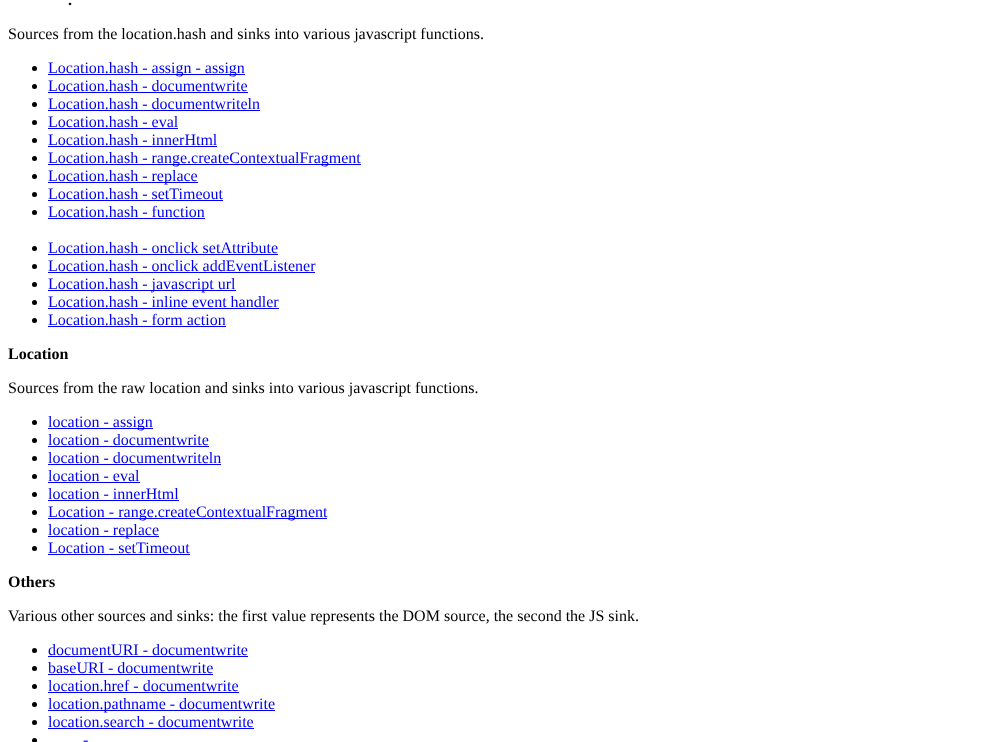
<svg xmlns="http://www.w3.org/2000/svg" width="982" height="742">
	<rect width="100%" height="100%" fill="#FFFFFF" />
	<text x="68" y="5" font-family="Liberation Serif" font-size="16" font-weight="700" fill="#000000">.</text>
	<text x="8" y="39" font-family="Liberation Serif" font-size="16" fill="#000000">Sources from the location.hash and sinks into various javascript functions.</text>
	<circle cx="34.5" cy="68.5" r="2.5" fill="#000000" />
	<rect x="48" y="74" width="197" height="1" fill="#0000EE" />
	<text x="48" y="73" font-family="Liberation Serif" font-size="16" fill="#0000EE">Location.hash - assign - assign</text>
	<circle cx="34.5" cy="86.5" r="2.5" fill="#000000" />
	<text x="48" y="91" font-family="Liberation Serif" font-size="16" fill="#0000EE">Location.hash - documentwrite</text>
	<rect x="48" y="92" width="200" height="1" fill="#0000EE" />
	<circle cx="34.5" cy="104.5" r="2.5" fill="#000000" />
	<text x="48" y="109" font-family="Liberation Serif" font-size="16" fill="#0000EE">Location.hash - documentwriteln</text>
	<rect x="48" y="110" width="212" height="1" fill="#0000EE" />
	<circle cx="34.5" cy="122.5" r="2.5" fill="#000000" />
	<text x="48" y="127" font-family="Liberation Serif" font-size="16" fill="#0000EE">Location.hash - eval</text>
	<rect x="48" y="128" width="130" height="1" fill="#0000EE" />
	<circle cx="34.5" cy="140.5" r="2.5" fill="#000000" />
	<text x="48" y="145" font-family="Liberation Serif" font-size="16" fill="#0000EE">Location.hash - innerHtml</text>
	<rect x="48" y="146" width="169" height="1" fill="#0000EE" />
	<circle cx="34.5" cy="158.5" r="2.5" fill="#000000" />
	<rect x="48" y="164" width="313" height="1" fill="#0000EE" />
	<text x="48" y="163" font-family="Liberation Serif" font-size="16" fill="#0000EE">Location.hash - range.createContextualFragment</text>
	<circle cx="34.5" cy="176.5" r="2.5" fill="#000000" />
	<rect x="48" y="182" width="150" height="1" fill="#0000EE" />
	<text x="48" y="181" font-family="Liberation Serif" font-size="16" fill="#0000EE">Location.hash - replace</text>
	<circle cx="34.5" cy="194.5" r="2.5" fill="#000000" />
	<text x="48" y="199" font-family="Liberation Serif" font-size="16" fill="#0000EE">Location.hash - setTimeout</text>
	<rect x="48" y="200" width="175" height="1" fill="#0000EE" />
	<circle cx="34.5" cy="212.5" r="2.5" fill="#000000" />
	<text x="48" y="217" font-family="Liberation Serif" font-size="16" fill="#0000EE">Location.hash - function</text>
	<rect x="48" y="218" width="157" height="1" fill="#0000EE" />
	<circle cx="34.5" cy="248.5" r="2.5" fill="#000000" />
	<text x="48" y="253" font-family="Liberation Serif" font-size="16" fill="#0000EE">Location.hash - onclick setAttribute</text>
	<rect x="48" y="254" width="230" height="1" fill="#0000EE" />
	<circle cx="34.5" cy="266.5" r="2.5" fill="#000000" />
	<text x="48" y="271" font-family="Liberation Serif" font-size="16" fill="#0000EE">Location.hash - onclick addEventListener</text>
	<rect x="48" y="272" width="267" height="1" fill="#0000EE" />
	<circle cx="34.5" cy="284.5" r="2.5" fill="#000000" />
	<rect x="48" y="290" width="188" height="1" fill="#0000EE" />
	<text x="48" y="289" font-family="Liberation Serif" font-size="16" fill="#0000EE">Location.hash - javascript url</text>
	<circle cx="34.5" cy="302.5" r="2.5" fill="#000000" />
	<text x="48" y="307" font-family="Liberation Serif" font-size="16" fill="#0000EE">Location.hash - inline event handler</text>
	<rect x="48" y="308" width="231" height="1" fill="#0000EE" />
	<circle cx="34.5" cy="320.5" r="2.5" fill="#000000" />
	<text x="48" y="325" font-family="Liberation Serif" font-size="16" fill="#0000EE">Location.hash - form action</text>
	<rect x="48" y="326" width="178" height="1" fill="#0000EE" />
	<text x="8" y="359" font-family="Liberation Serif" font-size="16" font-weight="700" fill="#000000">Location</text>
	<text x="8" y="393" font-family="Liberation Serif" font-size="16" fill="#000000">Sources from the raw location and sinks into various javascript functions.</text>
	<circle cx="34.5" cy="422.5" r="2.5" fill="#000000" />
	<rect x="48" y="428" width="105" height="1" fill="#0000EE" />
	<text x="48" y="427" font-family="Liberation Serif" font-size="16" fill="#0000EE">location - assign</text>
	<circle cx="34.5" cy="440.5" r="2.5" fill="#000000" />
	<text x="48" y="445" font-family="Liberation Serif" font-size="16" fill="#0000EE">location - documentwrite</text>
	<rect x="48" y="446" width="161" height="1" fill="#0000EE" />
	<circle cx="34.5" cy="458.5" r="2.5" fill="#000000" />
	<text x="48" y="463" font-family="Liberation Serif" font-size="16" fill="#0000EE">location - documentwriteln</text>
	<rect x="48" y="464" width="173" height="1" fill="#0000EE" />
	<circle cx="34.5" cy="476.5" r="2.5" fill="#000000" />
	<text x="48" y="481" font-family="Liberation Serif" font-size="16" fill="#0000EE">location - eval</text>
	<rect x="48" y="482" width="92" height="1" fill="#0000EE" />
	<circle cx="34.5" cy="494.5" r="2.5" fill="#000000" />
	<text x="48" y="499" font-family="Liberation Serif" font-size="16" fill="#0000EE">location - innerHtml</text>
	<rect x="48" y="500" width="131" height="1" fill="#0000EE" />
	<circle cx="34.5" cy="512.5" r="2.5" fill="#000000" />
	<rect x="48" y="518" width="279" height="1" fill="#0000EE" />
	<text x="48" y="517" font-family="Liberation Serif" font-size="16" fill="#0000EE">Location - range.createContextualFragment</text>
	<circle cx="34.5" cy="530.5" r="2.5" fill="#000000" />
	<rect x="48" y="536" width="111" height="1" fill="#0000EE" />
	<text x="48" y="535" font-family="Liberation Serif" font-size="16" fill="#0000EE">location - replace</text>
	<circle cx="34.5" cy="548.5" r="2.5" fill="#000000" />
	<text x="48" y="553" font-family="Liberation Serif" font-size="16" fill="#0000EE">Location - setTimeout</text>
	<rect x="48" y="554" width="142" height="1" fill="#0000EE" />
	<text x="8" y="587" font-family="Liberation Serif" font-size="16" font-weight="700" fill="#000000">Others</text>
	<text x="8" y="621" font-family="Liberation Serif" font-size="16" fill="#000000">Various other sources and sinks: the first value represents the DOM source, the second the JS sink.</text>
	<circle cx="34.5" cy="650.5" r="2.5" fill="#000000" />
	<text x="48" y="655" font-family="Liberation Serif" font-size="16" fill="#0000EE">documentURI - documentwrite</text>
	<rect x="48" y="656" width="200" height="1" fill="#0000EE" />
	<circle cx="34.5" cy="668.5" r="2.5" fill="#000000" />
	<text x="48" y="673" font-family="Liberation Serif" font-size="16" fill="#0000EE">baseURI - documentwrite</text>
	<rect x="48" y="674" width="165" height="1" fill="#0000EE" />
	<circle cx="34.5" cy="686.5" r="2.5" fill="#000000" />
	<text x="48" y="691" font-family="Liberation Serif" font-size="16" fill="#0000EE">location.href - documentwrite</text>
	<rect x="48" y="692" width="191" height="1" fill="#0000EE" />
	<circle cx="34.5" cy="704.5" r="2.5" fill="#000000" />
	<rect x="48" y="710" width="227" height="1" fill="#0000EE" />
	<text x="48" y="709" font-family="Liberation Serif" font-size="16" fill="#0000EE">location.pathname - documentwrite</text>
	<circle cx="34.5" cy="722.5" r="2.5" fill="#000000" />
	<text x="48" y="727" font-family="Liberation Serif" font-size="16" fill="#0000EE">location.search - documentwrite</text>
	<rect x="48" y="728" width="206" height="1" fill="#0000EE" />
	<circle cx="34.5" cy="740.5" r="2.5" fill="#000000" />
	<text x="83" y="745" font-family="Liberation Serif" font-size="16" fill="#0000EE">-</text>
</svg>
